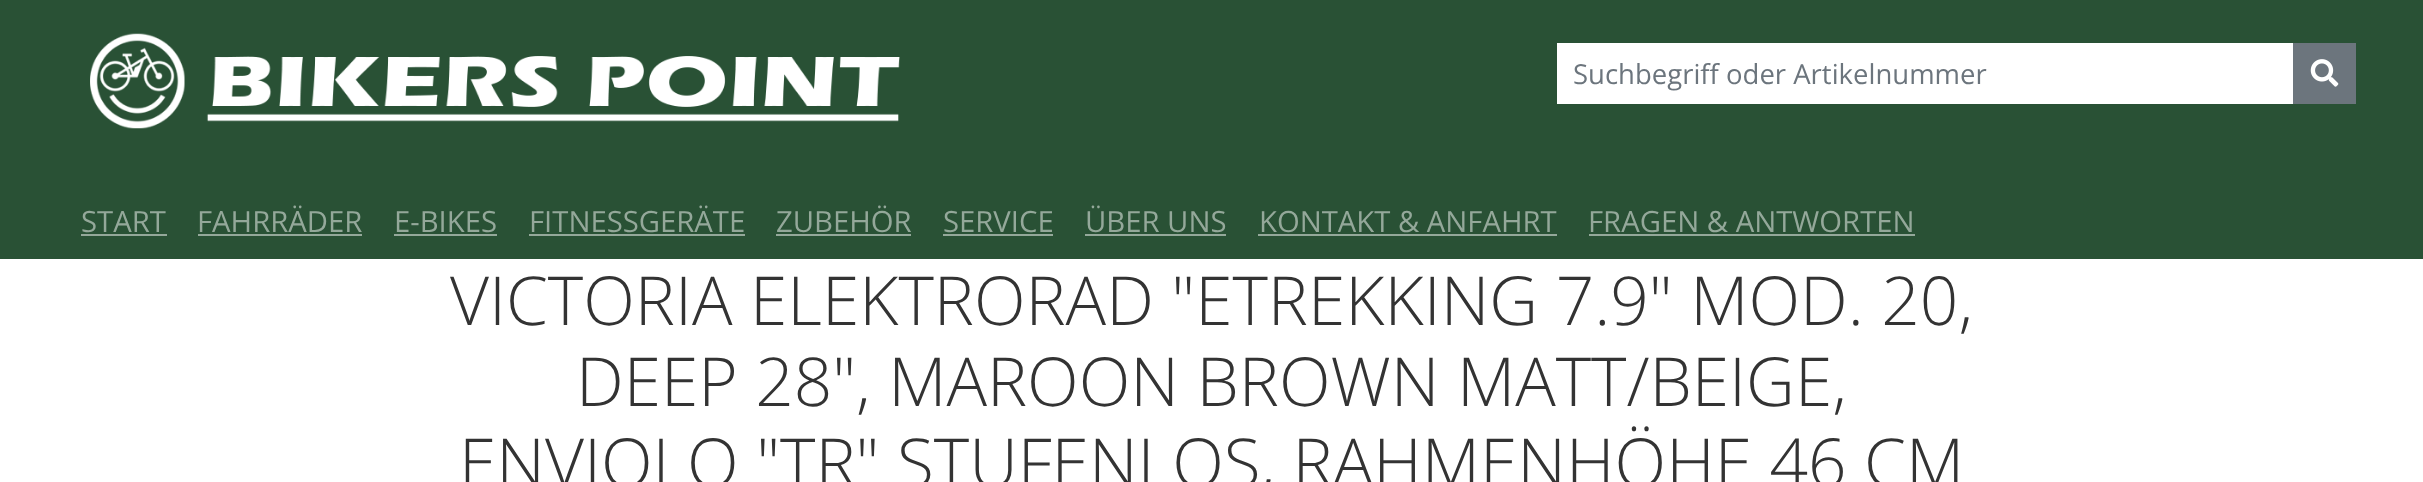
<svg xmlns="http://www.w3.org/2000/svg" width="2423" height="482">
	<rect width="100%" height="100%" fill="#FFFFFF" />
	<rect x="0" y="185" width="2423" height="74" fill="#295135" />
	<rect x="0" y="0" width="2423" height="185" fill="#295135" />
	<image x="90" y="33" width="810" height="96" href="assets/img1.png" />
	<rect x="1557" y="43" width="736" height="61" fill="#FFFFFF" />
	<text x="1573" y="84" font-family="Open Sans" font-size="27.5" fill="#6C757D">Suchbegriff oder Artikelnummer</text>
	<rect x="2293" y="43" width="63" height="61" fill="#6C757D" />
	<image x="2310" y="59" width="29" height="28" href="assets/img2.png" />
	<text x="81" y="232" font-family="Open Sans" font-size="29.25" fill="#94A89A">START</text>
	<rect x="81" y="234" width="86" height="2" fill="#94A89A" />
	<text x="197" y="232" font-family="Open Sans" font-size="29.25" fill="#94A89A">FAHRRÄDER</text>
	<rect x="198" y="234" width="164" height="2" fill="#94A89A" />
	<text x="394" y="232" font-family="Open Sans" font-size="29.25" fill="#94A89A">E-BIKES</text>
	<rect x="394" y="234" width="103" height="2" fill="#94A89A" />
	<text x="529" y="232" font-family="Open Sans" font-size="29.25" fill="#94A89A">FITNESSGERÄTE</text>
	<rect x="529" y="234" width="216" height="2" fill="#94A89A" />
	<text x="776" y="232" font-family="Open Sans" font-size="29.25" fill="#94A89A">ZUBEHÖR</text>
	<rect x="776" y="234" width="135" height="2" fill="#94A89A" />
	<text x="943" y="232" font-family="Open Sans" font-size="29.25" fill="#94A89A">SERVICE</text>
	<rect x="943" y="234" width="110" height="2" fill="#94A89A" />
	<text x="1085" y="232" font-family="Open Sans" font-size="29.25" fill="#94A89A">ÜBER UNS</text>
	<rect x="1085" y="234" width="141" height="2" fill="#94A89A" />
	<text x="1259" y="232" font-family="Open Sans" font-size="29.25" fill="#94A89A">KONTAKT &amp; ANFAHRT</text>
	<rect x="1258" y="234" width="299" height="2" fill="#94A89A" />
	<text x="1588" y="232" font-family="Open Sans" font-size="29.25" fill="#94A89A">FRAGEN &amp; ANTWORTEN</text>
	<rect x="1589" y="234" width="326" height="2" fill="#94A89A" />
	<g font-family="Open Sans" font-size="67.5" font-weight="300" fill="#333333">
		<text x="450" y="325">VICTORIA ELEKTRORAD "ETREKKING 7.9" MOD. 20,</text>
		<text x="576" y="406">DEEP 28", MAROON BROWN MATT/BEIGE,</text>
		<text x="459" y="487">ENVIOLO "TR" STUFENLOS, RAHMENHÖHE 46 CM</text>
	</g>
</svg>
